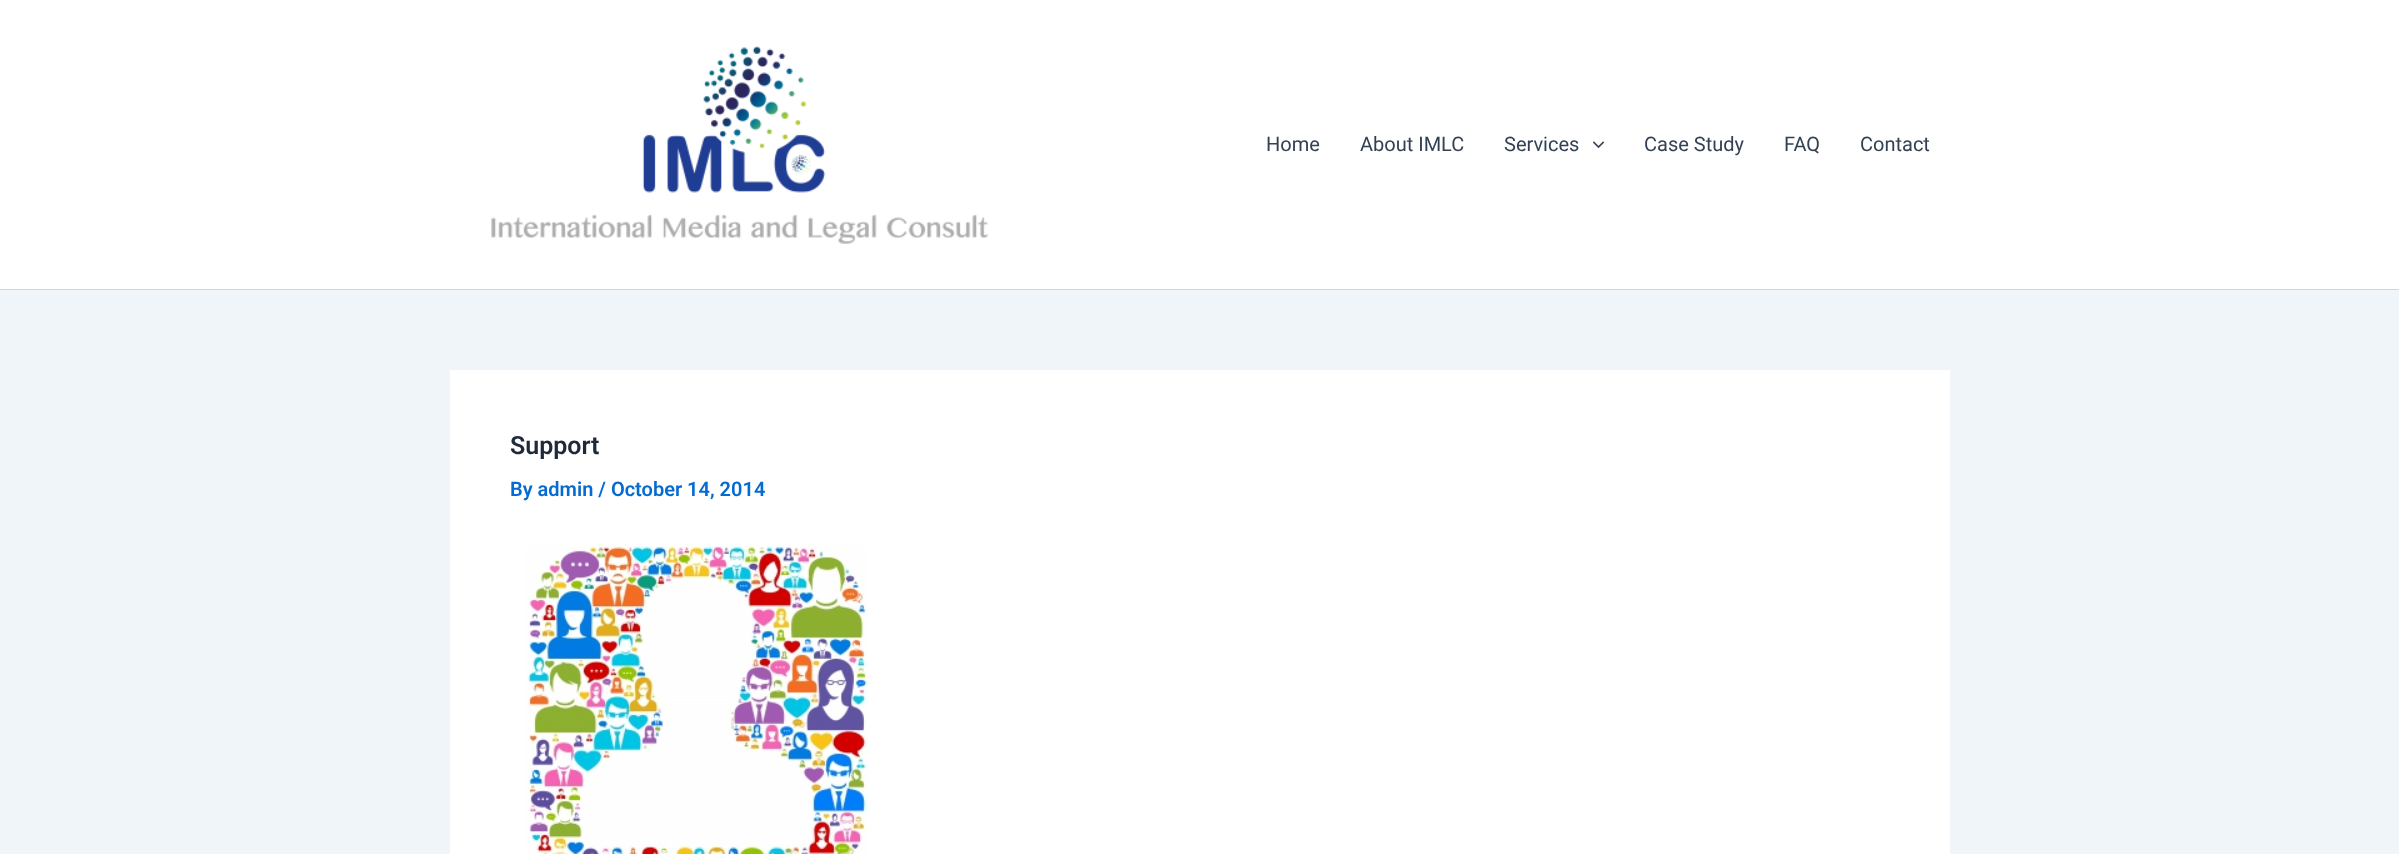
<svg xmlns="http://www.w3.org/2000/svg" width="2399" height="854">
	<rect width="100%" height="100%" fill="#F0F5FA" />
	<rect x="0" y="0" width="2399" height="289" fill="#FFFFFF" />
	<rect x="0" y="289" width="2399" height="1" fill="#D1D5DB" />
	<image x="491" y="46" width="498" height="198" href="assets/img1.png" />
	<g font-family="Roboto" font-size="20" fill="#334155">
		<text x="1266" y="151">Home</text>
		<text x="1360" y="151">About IMLC</text>
		<text x="1504" y="151">Services</text>
	</g>
	<image x="1593" y="141" width="11" height="8" href="assets/img2.png" />
	<g font-family="Roboto" font-size="20" fill="#334155">
		<text x="1644" y="151">Case Study</text>
		<text x="1784" y="151">FAQ</text>
		<text x="1860" y="151">Contact</text>
	</g>
	<rect x="450" y="370" width="1500" height="484" fill="#FFFFFF" />
	<text x="510" y="454" font-family="Roboto" font-size="25" font-weight="600" fill="#1E293B">Support</text>
	<text x="510" y="496" font-family="Roboto" font-size="20" font-weight="600" fill="#046BD2">By admin / October 14, 2014</text>
	<image x="526" y="546" width="342" height="308" href="assets/img3.png" />
</svg>
